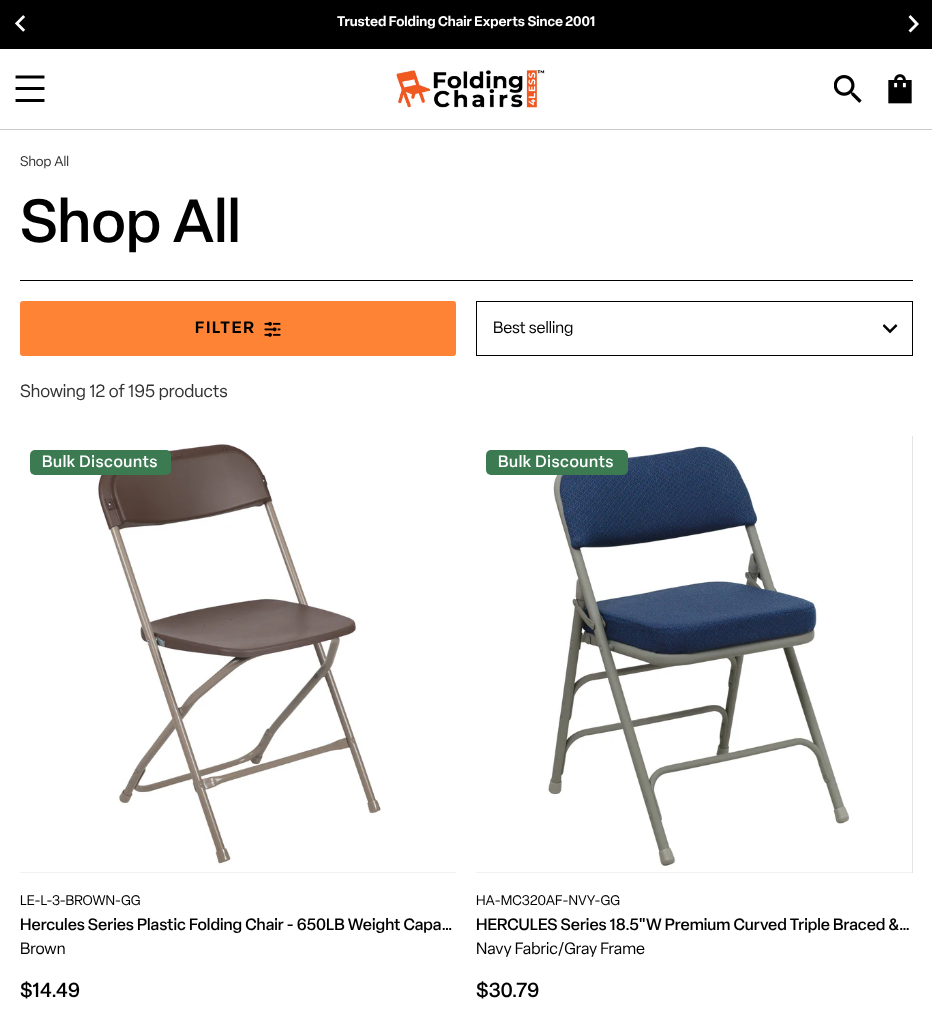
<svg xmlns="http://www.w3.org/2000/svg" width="932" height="1022">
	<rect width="100%" height="100%" fill="#FFFFFF" />
	<rect x="0" y="0" width="932" height="49" fill="#000000" />
	<image x="14" y="15" width="11" height="17" href="assets/img1.png" />
	<text x="337" y="26" font-family="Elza" font-size="13.75" font-weight="600" fill="#FFFFFF">Trusted Folding Chair Experts Since 2001</text>
	<path d="M908.5 30.5L915 24L908.5 17L910.5 15L919 24L910.5 32.5Z" fill="#FFFFFF" />
	<rect x="0" y="129" width="932" height="1" fill="#CCCAC8" />
	<path d="M17 100.5H43M17 88.5H43M17 77H43" fill="none" stroke="#000000" stroke-width="2.9" stroke-linecap="square" />
	<image x="396" y="70" width="149" height="38" href="assets/img2.png" />
	<image x="834" y="75" width="28" height="28" href="assets/img3.png" />
	<image x="888" y="74" width="24" height="30" href="assets/img4.png" />
	<text x="20" y="166" font-family="Elza" font-size="13.75" fill="#333232">Shop All</text>
	<text x="20" y="242" font-family="Elza" font-size="60" font-weight="500" fill="#000000">Shop All</text>
	<rect x="20" y="280" width="893" height="1" fill="#000000" />
	<rect x="20.5" y="301.5" width="435" height="54" rx="2" fill="#FF8335" stroke="#FF8335" />
	<text x="195" y="333" font-family="Elza" font-size="16.25" font-weight="600" letter-spacing="1.75" fill="#000000">FILTER</text>
	<image x="264" y="321" width="17" height="16" href="assets/img5.png" />
	<rect x="476.5" y="301.5" width="436" height="54" fill="none" stroke="#000000" />
	<text x="493" y="333" font-family="Elza" font-size="16.25" fill="#000000">Best selling</text>
	<image x="883" y="324" width="15" height="10" href="assets/img6.png" />
	<text x="20" y="397" font-family="Elza" font-size="17.5" fill="#333232">Showing 12 of 195 products</text>
	<rect x="20" y="872" width="436" height="1" fill="#E6E3E1" />
	<image x="20" y="436" width="436" height="437" href="assets/img7.png" />
	<rect x="30" y="450" width="141" height="25" rx="5" fill="#3C7A52" />
	<text x="42" y="467" font-family="Elza" font-size="16.25" font-weight="500" letter-spacing="0.6" fill="#FFFFFF">Bulk Discounts</text>
	<text x="20" y="905" font-family="Elza" font-size="13.75" fill="#000000">LE-L-3-BROWN-GG</text>
	<text x="20" y="930" font-family="Elza" font-size="16.25" font-weight="500" fill="#000000">Hercules Series Plastic Folding Chair - 650LB Weight Capa…</text>
	<text x="20" y="954" font-family="Elza" font-size="16.25" fill="#000000">Brown</text>
	<text x="20" y="997" font-family="Elza" font-size="20" font-weight="500" fill="#000000">$14.49</text>
	<rect x="476" y="436" width="437" height="437" fill="#E6E3E1" />
	<image x="476" y="436" width="436" height="437" href="assets/img8.png" />
	<rect x="486" y="450" width="142" height="25" rx="5" fill="#3C7A52" />
	<text x="498" y="467" font-family="Elza" font-size="16.25" font-weight="500" letter-spacing="0.6" fill="#FFFFFF">Bulk Discounts</text>
	<text x="476" y="905" font-family="Elza" font-size="13.75" fill="#000000">HA-MC320AF-NVY-GG</text>
	<text x="476" y="930" font-family="Elza" font-size="16.25" font-weight="500" fill="#000000">HERCULES Series 18.5"W Premium Curved Triple Braced &amp;…</text>
	<text x="476" y="954" font-family="Elza" font-size="16.25" fill="#000000">Navy Fabric/Gray Frame</text>
	<text x="476" y="997" font-family="Elza" font-size="20" font-weight="500" fill="#000000">$30.79</text>
</svg>
